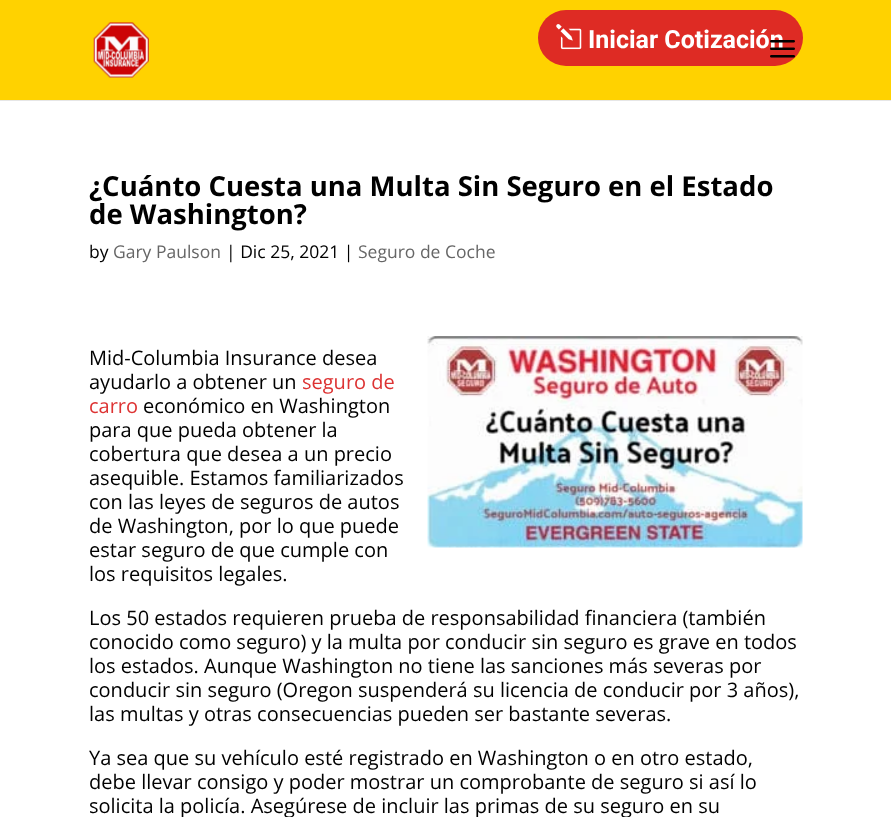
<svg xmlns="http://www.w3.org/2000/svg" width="891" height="817">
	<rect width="100%" height="100%" fill="#FFFFFF" />
	<rect x="0" y="100" width="891" height="1" fill="#E6E6E6" />
	<rect x="0" y="0" width="891" height="100" fill="#FFD200" />
	<image x="93" y="22" width="56" height="56" href="assets/img1.png" />
	<rect x="538" y="10" width="265" height="56" rx="28" fill="#DE2B24" />
	<image x="556" y="24" width="26" height="26" href="assets/img2.png" />
	<text x="588" y="48" font-family="Roboto" font-size="25" font-weight="700" fill="#FFFFFF">Iniciar Cotización</text>
	<image x="770" y="40" width="25" height="18" href="assets/img3.png" />
	<g font-family="Open Sans" font-size="27.5" font-weight="700" fill="#000000">
		<text x="89" y="196">¿Cuánto Cuesta una Multa Sin Seguro en el Estado</text>
		<text x="89" y="224">de Washington?</text>
	</g>
	<text x="89" y="258" font-family="Open Sans" font-size="17.5" fill="#000000">by</text>
	<text x="113" y="258" font-family="Open Sans" font-size="17.5" fill="#666666">Gary Paulson</text>
	<text x="226" y="258" font-family="Open Sans" font-size="17.5" fill="#000000">| Dic 25, 2021 |</text>
	<text x="358" y="258" font-family="Open Sans" font-size="17.5" fill="#666666">Seguro de Coche</text>
	<g font-family="Open Sans" font-size="20" fill="#000000">
		<text x="89" y="365">Mid-Columbia Insurance desea</text>
		<text x="89" y="389">ayudarlo a obtener un</text>
	</g>
	<g font-family="Open Sans" font-size="20" fill="#DD3333">
		<text x="302" y="389">seguro de</text>
		<text x="89" y="413">carro</text>
	</g>
	<g font-family="Open Sans" font-size="20" fill="#000000">
		<text x="143" y="413">económico en Washington</text>
		<text x="89" y="437">para que pueda obtener la</text>
		<text x="89" y="461">cobertura que desea a un precio</text>
		<text x="89" y="485">asequible. Estamos familiarizados</text>
		<text x="89" y="509">con las leyes de seguros de autos</text>
		<text x="89" y="533">de Washington, por lo que puede</text>
		<text x="89" y="557">estar seguro de que cumple con</text>
		<text x="89" y="581">los requisitos legales.</text>
	</g>
	<image x="427" y="336" width="376" height="212" href="assets/img4.png" />
	<g font-family="Open Sans" font-size="20" fill="#000000">
		<text x="89" y="625">Los 50 estados requieren prueba de responsabilidad financiera (también</text>
		<text x="89" y="649">conocido como seguro) y la multa por conducir sin seguro es grave en todos</text>
		<text x="89" y="673">los estados. Aunque Washington no tiene las sanciones más severas por</text>
		<text x="89" y="697">conducir sin seguro (Oregon suspenderá su licencia de conducir por 3 años),</text>
		<text x="89" y="721">las multas y otras consecuencias pueden ser bastante severas.</text>
		<text x="89" y="765">Ya sea que su vehículo esté registrado en Washington o en otro estado,</text>
		<text x="89" y="789">debe llevar consigo y poder mostrar un comprobante de seguro si así lo</text>
		<text x="89" y="813">solicita la policía. Asegúrese de incluir las primas de su seguro en su</text>
	</g>
</svg>
